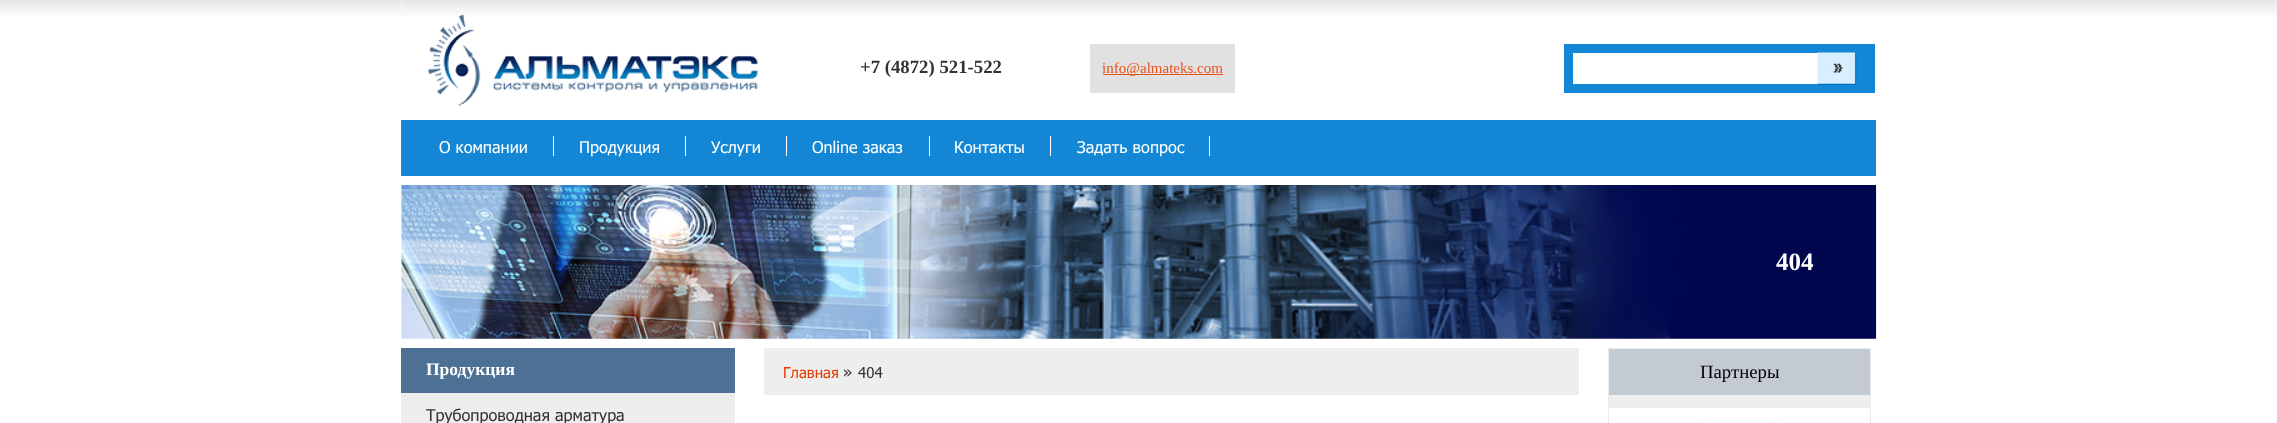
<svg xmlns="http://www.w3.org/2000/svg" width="2277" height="423">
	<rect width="100%" height="100%" fill="#FFFFFF" />
	<image x="0" y="0" width="2277" height="16" href="assets/img1.png" />
	<rect x="401" y="0" width="1475" height="16" fill="#FFFFFF" />
	<image x="401" y="0" width="1475" height="16" href="assets/img2.png" />
	<image x="427" y="13" width="331" height="94" href="assets/img3.png" />
	<text x="860" y="73" font-family="Liberation Serif" font-size="18.75" font-weight="700" fill="#333333">+7 (4872) 521-522</text>
	<rect x="1090" y="44" width="145" height="49" fill="#E1E1E1" />
	<rect x="1103" y="74" width="120" height="1" fill="#E5521E" />
	<text x="1102" y="73" font-family="Liberation Serif" font-size="15" fill="#E5521E">info@almateks.com</text>
	<rect x="1564" y="44" width="311" height="49" fill="#1387D5" />
	<rect x="1573" y="53" width="245" height="31" fill="#FFFFFF" />
	<image x="1817" y="52" width="40" height="33" href="assets/img4.png" />
	<rect x="401" y="120" width="1475" height="56" fill="#1387D5" />
	<text x="439" y="153" font-family="Tahoma" font-size="16.25" fill="#FFFFFF">О компании</text>
	<rect x="553" y="136" width="1" height="20" fill="#FFFFFF" />
	<text x="579" y="153" font-family="Tahoma" font-size="16.25" fill="#FFFFFF">Продукция</text>
	<rect x="685" y="136" width="1" height="20" fill="#FFFFFF" />
	<text x="711" y="153" font-family="Tahoma" font-size="16.25" fill="#FFFFFF">Услуги</text>
	<rect x="786" y="136" width="1" height="20" fill="#FFFFFF" />
	<text x="812" y="153" font-family="Tahoma" font-size="16.25" fill="#FFFFFF">Online заказ</text>
	<rect x="929" y="136" width="1" height="20" fill="#FFFFFF" />
	<text x="954" y="153" font-family="Tahoma" font-size="16.25" fill="#FFFFFF">Контакты</text>
	<rect x="1050" y="136" width="1" height="20" fill="#FFFFFF" />
	<text x="1077" y="153" font-family="Tahoma" font-size="16.25" fill="#FFFFFF">Задать вопрос</text>
	<rect x="1209" y="136" width="1" height="20" fill="#FFFFFF" />
	<image x="401" y="185" width="1476" height="154" href="assets/img5.png" />
	<text x="1776" y="270" font-family="Liberation Serif" font-size="25" font-weight="700" fill="#FFFFFF">404</text>
	<rect x="401" y="348" width="334" height="45" fill="#4C7195" />
	<text x="426" y="375" font-family="Liberation Serif" font-size="17.5" font-weight="700" fill="#FFFFFF">Продукция</text>
	<rect x="401" y="393" width="334" height="30" fill="#EEEEEE" />
	<text x="426" y="421" font-family="Tahoma" font-size="16.25" fill="#333333">Трубопроводная арматура</text>
	<rect x="764" y="348" width="815" height="47" fill="#EEEEEE" />
	<text x="783" y="378" font-family="Tahoma" font-size="15" fill="#E23E03">Главная</text>
	<text x="843" y="378" font-family="Tahoma" font-size="16.25" fill="#333333">»</text>
	<text x="858" y="378" font-family="Tahoma" font-size="15" fill="#333333">404</text>
	<rect x="1609" y="395" width="261" height="13" fill="#EEEEEE" />
	<rect x="1608.5" y="348.5" width="262" height="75" fill="none" stroke="#EBEBEB" />
	<rect x="1609" y="349" width="261" height="46" fill="#C3CAD3" />
	<text x="1700" y="378" font-family="Liberation Serif" font-size="18.75" fill="#000000">Партнеры</text>
	<image x="1696" y="420" width="84" height="3" href="assets/img6.png" />
</svg>
